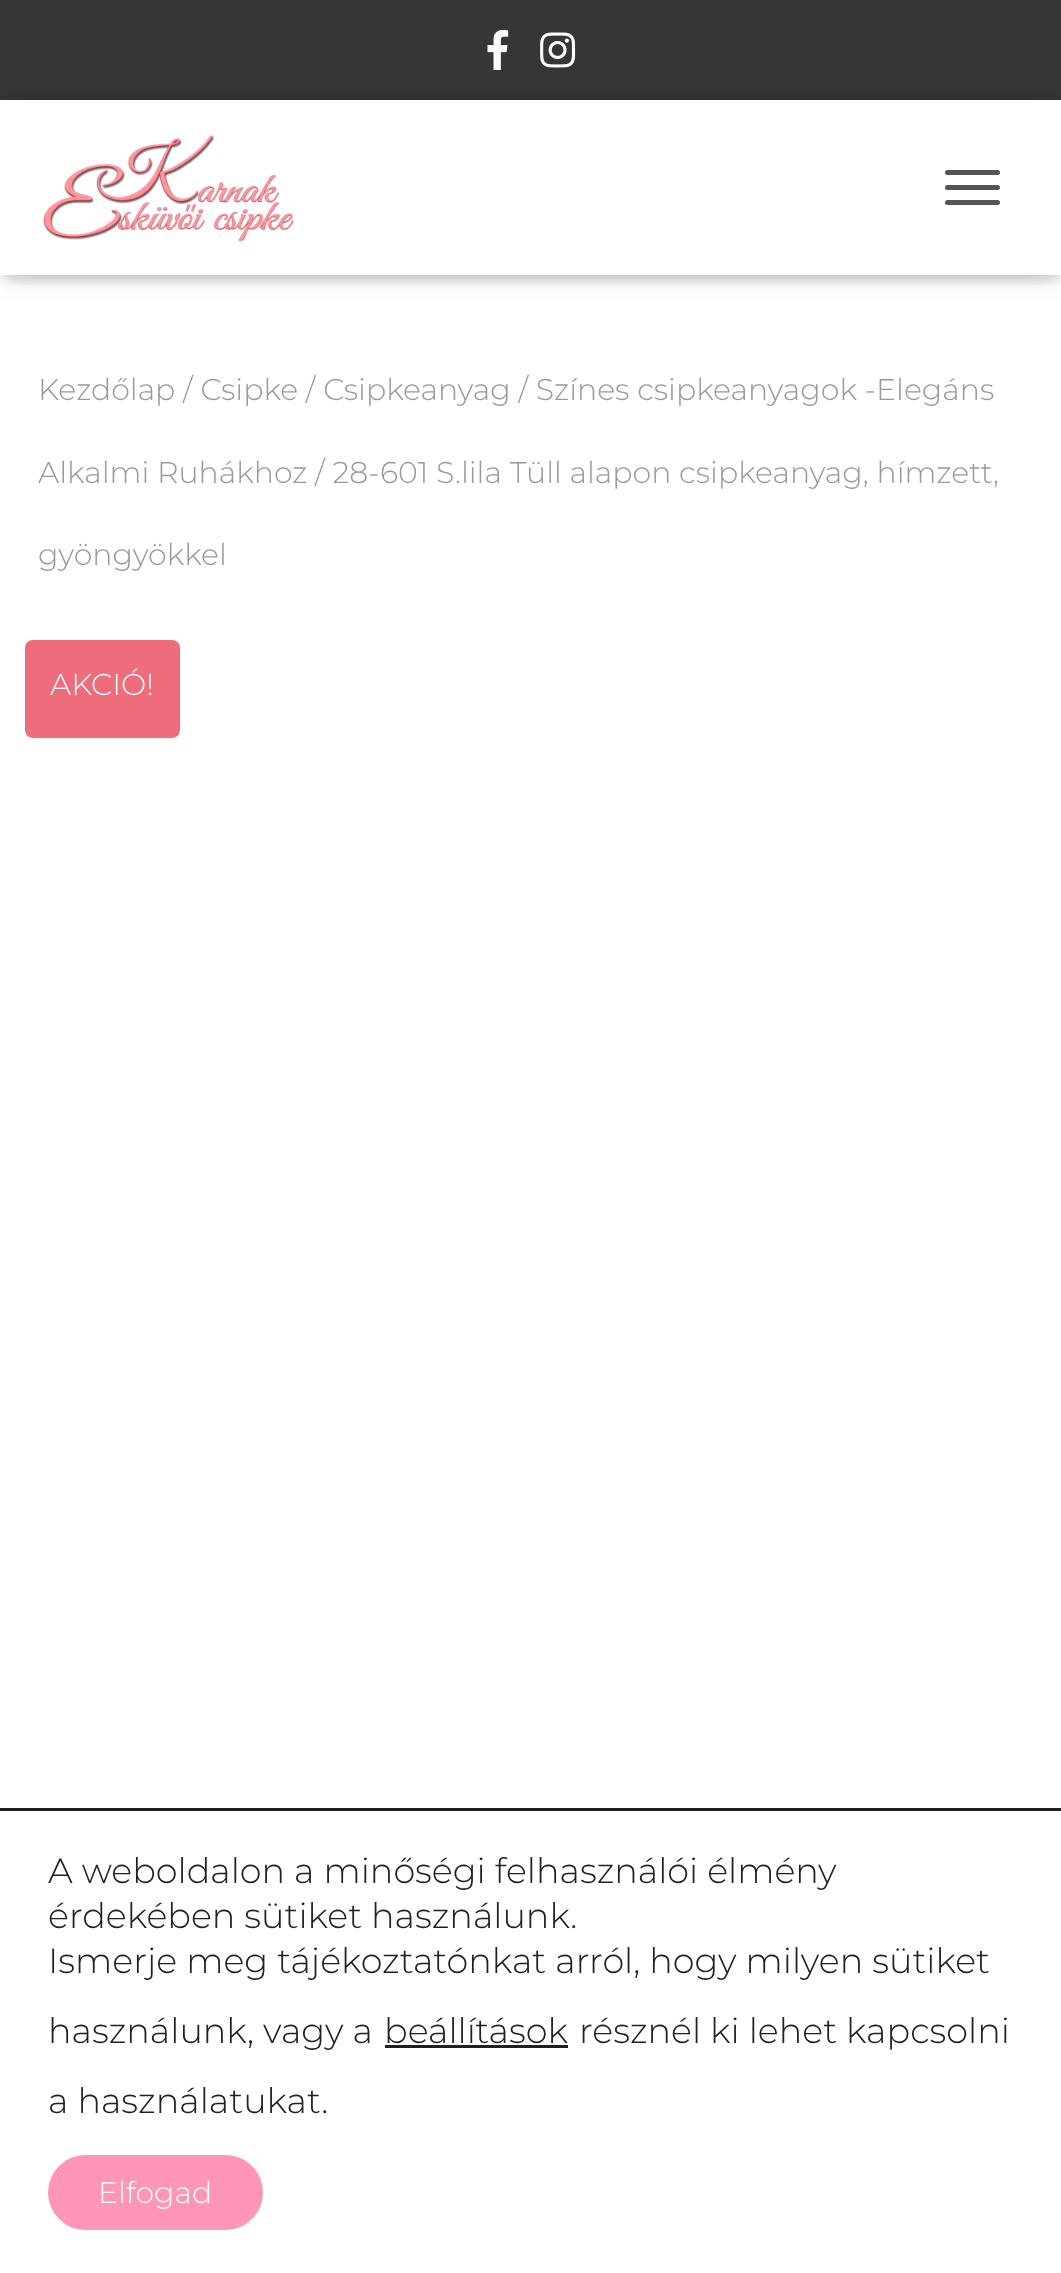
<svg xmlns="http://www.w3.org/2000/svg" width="1061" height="2273">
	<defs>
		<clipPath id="clip1"><rect x="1" y="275" width="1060" height="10" /></clipPath>
		<clipPath id="clip2"><path d="M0 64H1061V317H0ZM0 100H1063V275H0Z" clip-rule="evenodd" /></clipPath>
		<clipPath id="clip3"><path d="M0 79H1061V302H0ZM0 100H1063V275H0Z" clip-rule="evenodd" /></clipPath>
	</defs>
	<rect width="100%" height="100%" fill="#363537" />
	<image x="487" y="30" width="22" height="40" href="assets/img1.png" />
	<image x="540" y="32" width="36" height="36" href="assets/img2.png" />
	<rect x="0" y="100" width="1061" height="2173" fill="#FFFFFF" />
	<g clip-path="url(#clip1)">
		<rect x="5" y="115" width="1053" height="165" fill="#000000" fill-opacity="0.1" filter="blur(6px)" />
	</g>
	<g clip-path="url(#clip2)">
		<rect x="0" y="103" width="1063" height="175" fill="#000000" fill-opacity="0.12" filter="blur(12.5px)" />
	</g>
	<g clip-path="url(#clip3)">
		<rect x="15" y="118" width="1033" height="145" fill="#000000" fill-opacity="0.42" filter="blur(12.5px)" />
	</g>
	<image x="43" y="135" width="251" height="107" href="assets/img3.png" />
	<rect x="945" y="170" width="55" height="5" rx="2.5" fill="#555555" />
	<rect x="945" y="185" width="55" height="5" rx="2.5" fill="#555555" />
	<rect x="945" y="200" width="55" height="5" rx="2.5" fill="#555555" />
	<g font-family="Montserrat" font-size="30" font-weight="300" fill="#999999">
		<text x="38" y="400">Kezdőlap / Csipke / Csipkeanyag / Színes csipkeanyagok -Elegáns</text>
		<text x="38" y="483">Alkalmi Ruhákhoz / 28-601 S.lila Tüll alapon csipkeanyag, hímzett,</text>
		<text x="38" y="565">gyöngyökkel</text>
	</g>
	<rect x="25" y="640" width="155" height="98" rx="8" fill="#EE6C7B" />
	<text x="50" y="695" font-family="Montserrat" font-size="30" font-weight="300" fill="#FFFFFF">AKCIÓ!</text>
	<rect x="0" y="1808" width="1061" height="3" fill="#202020" />
	<g font-family="Montserrat" font-size="35" font-weight="300" fill="#202020">
		<text x="48" y="1883">A weboldalon a minőségi felhasználói élmény</text>
		<text x="48" y="1928">érdekében sütiket használunk.</text>
		<text x="48" y="1973">Ismerje meg tájékoztatónkat arról, hogy milyen sütiket</text>
		<text x="48" y="2043">használunk, vagy a</text>
		<text x="384" y="2043">beállítások</text>
	</g>
	<rect x="385" y="2045" width="183" height="3" fill="#202020" />
	<g font-family="Montserrat" font-size="35" font-weight="300" fill="#202020">
		<text x="579" y="2043">résznél ki lehet kapcsolni</text>
		<text x="48" y="2113">a használatukat.</text>
	</g>
	<rect x="48" y="2155" width="215" height="75" rx="37.5" fill="#FF96B7" />
	<text x="98" y="2203" font-family="Montserrat" font-size="30" font-weight="300" fill="#FFFFFF">Elfogad</text>
</svg>
